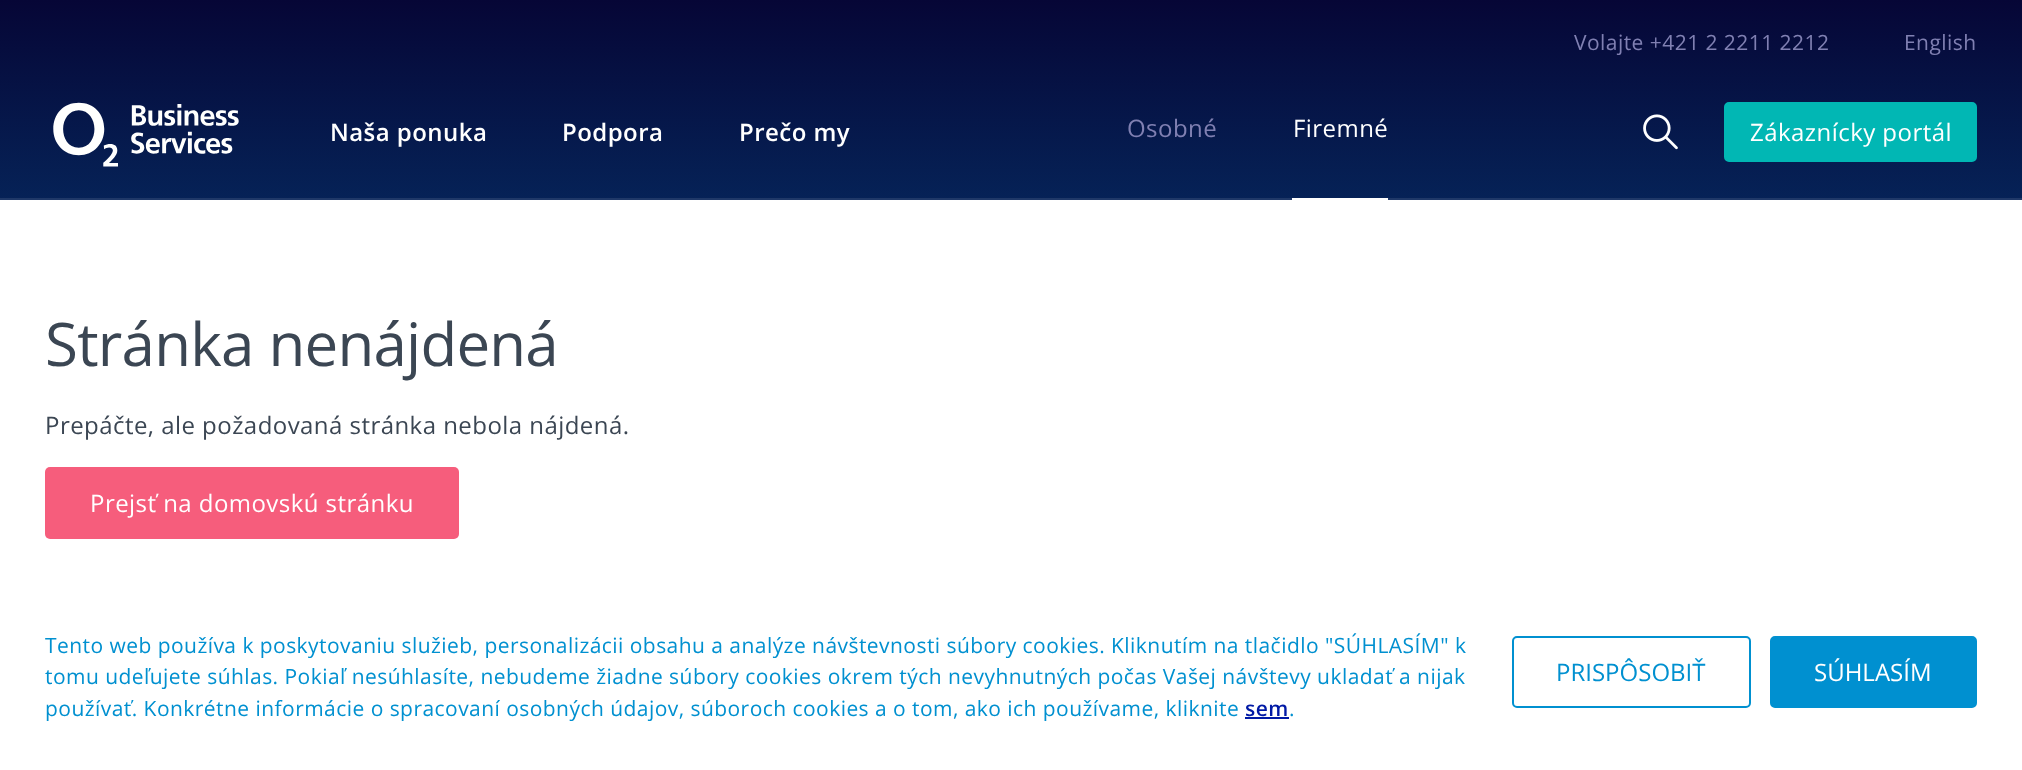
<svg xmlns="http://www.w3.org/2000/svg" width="2022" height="770">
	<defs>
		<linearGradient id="g1" gradientUnits="userSpaceOnUse" x1="1011" y1="0" x2="1011" y2="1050"><stop offset="0" stop-color="#060636" /><stop offset="0.48" stop-color="#054D89" /><stop offset="0.73" stop-color="#1A9DD9" /><stop offset="0.81" stop-color="#7DBDE7" /><stop offset="1" stop-color="#FFFFFF" /></linearGradient>
	</defs>
	<rect width="100%" height="100%" fill="#FFFFFF" />
	<rect x="0" y="0" width="2022" height="198" fill="url(#g1)" />
	<g font-family="Open Sans" font-size="21" letter-spacing="0.45" fill="#8080B2">
		<text x="1574" y="50">Volajte +421 2 2211 2212</text>
		<text x="1904" y="50">English</text>
	</g>
	<image x="53" y="102" width="186" height="65" href="assets/img1.png" />
	<g font-family="Open Sans" font-size="24" font-weight="600" letter-spacing="0.45" fill="#FFFFFF">
		<text x="330" y="141">Naša ponuka</text>
		<text x="562" y="141">Podpora</text>
		<text x="739" y="141">Prečo my</text>
	</g>
	<text x="1127" y="137" font-family="Open Sans" font-size="24" letter-spacing="0.45" fill="#8080B2">Osobné</text>
	<text x="1293" y="137" font-family="Open Sans" font-size="24" letter-spacing="0.45" fill="#FFFFFF">Firemné</text>
	<rect x="0" y="198" width="2022" height="2" fill="#1F3868" />
	<rect x="1292" y="198" width="96" height="2" fill="#FFFFFF" />
	<image x="1643" y="114" width="35" height="36" href="assets/img2.png" />
	<rect x="1725" y="103" width="251" height="58" rx="4" fill="#01B7B4" stroke="#01B7B4" stroke-width="2" />
	<text x="1750" y="141" font-family="Open Sans" font-size="24" letter-spacing="0.45" fill="#FFFFFF">Zákaznícky portál</text>
	<text x="45" y="366" font-family="Open Sans" font-size="60" letter-spacing="-0.75" fill="#3B4653">Stránka nenájdená</text>
	<text x="45" y="434" font-family="Open Sans" font-size="24" letter-spacing="0.45" fill="#3B4653">Prepáčte, ale požadovaná stránka nebola nájdená.</text>
	<rect x="45" y="467" width="414" height="72" rx="5" fill="#F65D7C" />
	<text x="90" y="512" font-family="Open Sans" font-size="24" letter-spacing="0.45" fill="#FFFFFF">Prejsť na domovskú stránku</text>
	<g font-family="Open Sans" font-size="21" letter-spacing="0.45" fill="#0090D0">
		<text x="45" y="653">Tento web používa k poskytovaniu služieb, personalizácii obsahu a analýze návštevnosti súbory cookies. Kliknutím na tlačidlo "SÚHLASÍM" k</text>
		<text x="45" y="684">tomu udeľujete súhlas. Pokiaľ nesúhlasíte, nebudeme žiadne súbory cookies okrem tých nevyhnutných počas Vašej návštevy ukladať a nijak</text>
		<text x="45" y="716">používať. Konkrétne informácie o spracovaní osobných údajov, súboroch cookies a o tom, ako ich používame, kliknite</text>
	</g>
	<text x="1245" y="716" font-family="Open Sans" font-size="21" font-weight="600" letter-spacing="0.45" fill="#0019A5">sem</text>
	<rect x="1245" y="717" width="44" height="2" fill="#0019A5" />
	<text x="1289" y="716" font-family="Open Sans" font-size="21" letter-spacing="0.45" fill="#0090D0">.</text>
	<rect x="1513" y="637" width="237" height="70" rx="4" fill="none" stroke="#0090D0" stroke-width="2" />
	<text x="1556" y="681" font-family="Open Sans" font-size="24" fill="#0090D0">PRISPÔSOBIŤ</text>
	<rect x="1771" y="637" width="205" height="70" rx="4" fill="#0090D0" stroke="#0090D0" stroke-width="2" />
	<text x="1814" y="681" font-family="Open Sans" font-size="24" fill="#FFFFFF">SÚHLASÍM</text>
</svg>
